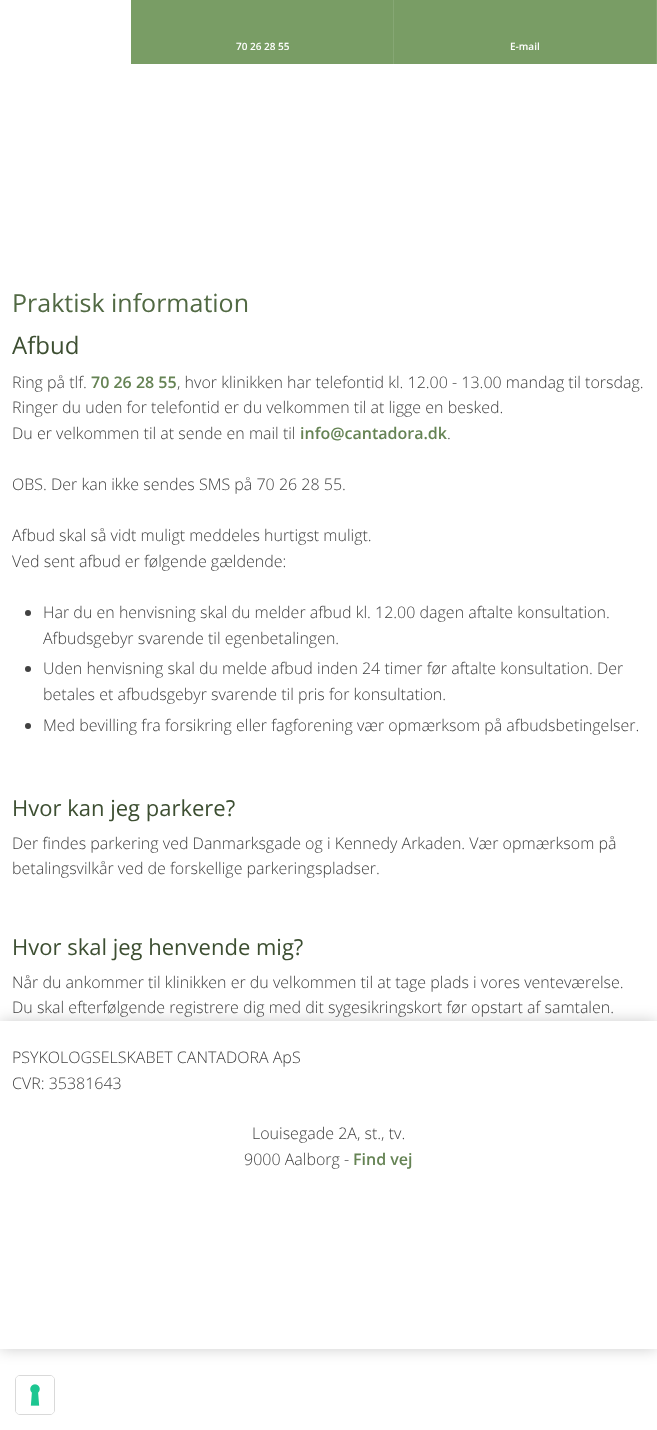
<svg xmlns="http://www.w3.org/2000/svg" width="657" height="1430">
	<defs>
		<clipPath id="clip1"><path d="M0 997H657V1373H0ZM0 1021H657V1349H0Z" clip-rule="evenodd" /></clipPath>
	</defs>
	<rect width="100%" height="100%" fill="#FFFFFF" />
	<rect x="131" y="0" width="262" height="64" fill="#799D65" />
	<rect x="393" y="0" width="1" height="64" fill="#86A774" />
	<text x="236" y="50" font-family="Open Sans" font-size="10" font-weight="600" fill="#FFFFFF">70 26 28 55</text>
	<rect x="394" y="0" width="262" height="64" fill="#799D65" />
	<rect x="656" y="0" width="1" height="64" fill="#86A774" />
	<text x="510" y="50" font-family="Open Sans" font-size="10" font-weight="600" fill="#FFFFFF">E-mail</text>
	<text x="12" y="312" font-family="Open Sans" font-size="25" fill="#516943">Praktisk information</text>
	<text x="12" y="354" font-family="Open Sans" font-size="24" fill="#3D4F32">Afbud</text>
	<text x="12" y="388" font-family="Open Sans" font-size="16" font-weight="300" fill="#414141">Ring på tlf.</text>
	<text x="91" y="388" font-family="Open Sans" font-size="16" font-weight="600" fill="#658354">70 26 28 55</text>
	<g font-family="Open Sans" font-size="16" font-weight="300" fill="#414141">
		<text x="177" y="388">, hvor klinikken har telefontid kl. 12.00 - 13.00 mandag til torsdag.</text>
		<text x="12" y="413">Ringer du uden for telefontid er du velkommen til at ligge en besked.</text>
		<text x="12" y="439">Du er velkommen til at sende en mail til</text>
	</g>
	<text x="300" y="439" font-family="Open Sans" font-size="16" font-weight="600" fill="#658354">info@cantadora.dk</text>
	<g font-family="Open Sans" font-size="16" font-weight="300" fill="#414141">
		<text x="447" y="439">.</text>
		<text x="12" y="490">OBS. Der kan ikke sendes SMS på 70 26 28 55.</text>
		<text x="12" y="541">Afbud skal så vidt muligt meddeles hurtigst muligt.</text>
		<text x="12" y="567">Ved sent afbud er følgende gældende:</text>
	</g>
	<circle cx="28" cy="613" r="3" fill="#414141" />
	<g font-family="Open Sans" font-size="16" font-weight="300" fill="#414141">
		<text x="43" y="618">Har du en henvisning skal du melder afbud kl. 12.00 dagen aftalte konsultation.</text>
		<text x="43" y="644">Afbudsgebyr svarende til egenbetalingen.</text>
	</g>
	<circle cx="28" cy="669" r="3" fill="#414141" />
	<g font-family="Open Sans" font-size="16" font-weight="300" fill="#414141">
		<text x="43" y="674">Uden henvisning skal du melde afbud inden 24 timer før aftalte konsultation. Der</text>
		<text x="43" y="700">betales et afbudsgebyr svarende til pris for konsultation.</text>
	</g>
	<circle cx="28" cy="726" r="3" fill="#414141" />
	<text x="43" y="731" font-family="Open Sans" font-size="16" font-weight="300" fill="#414141">Med bevilling fra forsikring eller fagforening vær opmærksom på afbudsbetingelser.</text>
	<text x="12" y="816" font-family="Open Sans" font-size="22" fill="#3D4F32">Hvor kan jeg parkere?</text>
	<g font-family="Open Sans" font-size="16" font-weight="300" fill="#414141">
		<text x="12" y="849">Der findes parkering ved Danmarksgade og i Kennedy Arkaden. Vær opmærksom på</text>
		<text x="12" y="874">betalingsvilkår ved de forskellige parkeringspladser.</text>
	</g>
	<text x="12" y="955" font-family="Open Sans" font-size="22" fill="#3D4F32">Hvor skal jeg henvende mig?</text>
	<g font-family="Open Sans" font-size="16" font-weight="300" fill="#414141">
		<text x="12" y="988">Når du ankommer til klinikken er du velkommen til at tage plads i vores venteværelse.</text>
		<text x="12" y="1013">Du skal efterfølgende registrere dig med dit sygesikringskort før opstart af samtalen.</text>
	</g>
	<g clip-path="url(#clip1)">
		<rect x="0" y="1021" width="657" height="328" fill="#000000" fill-opacity="0.2" filter="blur(7.5px)" />
	</g>
	<g font-family="Open Sans" font-size="16" font-weight="300" fill="#414141">
		<text x="12" y="1063">PSYKOLOGSELSKABET CANTADORA ApS</text>
		<text x="12" y="1089">CVR: 35381643</text>
		<text x="252" y="1139">Louisegade 2A, st., tv.</text>
		<text x="244" y="1165">9000 Aalborg -</text>
	</g>
	<text x="353" y="1165" font-family="Open Sans" font-size="16" font-weight="600" fill="#658354">Find vej</text>
	<rect x="15.5" y="1375.5" width="39" height="39" rx="4.5" fill="none" stroke="#D9D9D9" />
	<rect x="16" y="1376" width="38" height="38" rx="4" fill="#FFFFFF" />
	<image x="30" y="1384" width="10" height="22" href="assets/img1.png" />
</svg>
